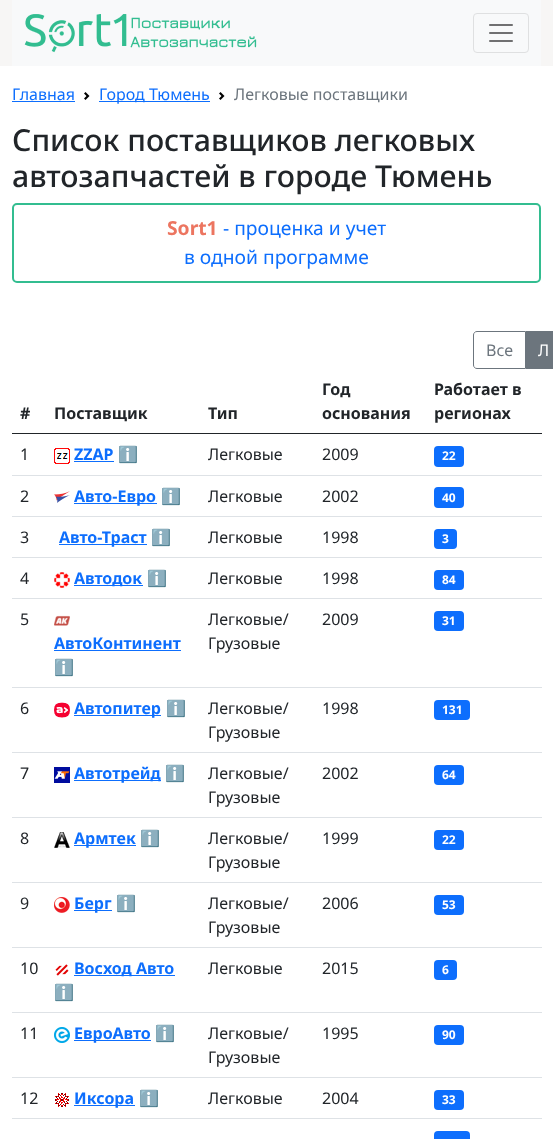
<svg xmlns="http://www.w3.org/2000/svg" width="553" height="1139">
	<rect width="100%" height="100%" fill="#FFFFFF" />
	<rect x="0" y="0" width="553" height="66" fill="#F7F6F5" />
	<rect x="12" y="0" width="529" height="66" fill="#F8F9FA" />
	<image x="24" y="14" width="233" height="39" href="assets/img1.png" />
	<rect x="473.5" y="13.5" width="55" height="39" rx="3.5" fill="none" stroke="#DFE0E1" />
	<image x="489" y="24" width="24" height="18" href="assets/img2.png" />
	<text x="12" y="100" font-family="Noto Sans" font-size="16" fill="#0D6EFD">Главная</text>
	<rect x="12" y="101" width="63" height="1" fill="#0D6EFD" />
	<image x="84" y="92" width="6" height="8" href="assets/img3.png" />
	<rect x="99" y="101" width="111" height="1" fill="#0D6EFD" />
	<text x="99" y="100" font-family="Noto Sans" font-size="16" fill="#0D6EFD">Город Тюмень</text>
	<image x="219" y="92" width="6" height="8" href="assets/img3.png" />
	<text x="234" y="100" font-family="Noto Sans" font-size="16" fill="#6C757D">Легковые поставщики</text>
	<g font-family="Noto Sans" font-size="30.25" font-weight="500" fill="#212529">
		<text x="12" y="151">Список поставщиков легковых</text>
		<text x="12" y="187">автозапчастей в городе Тюмень</text>
	</g>
	<rect x="13" y="204" width="527" height="78" rx="4" fill="none" stroke="#33BD90" stroke-width="2" />
	<text x="167" y="235" font-family="Noto Sans" font-size="19.25" font-weight="700" fill="#EC7560">Sort1</text>
	<g font-family="Noto Sans" font-size="19.25" fill="#0D6EFD">
		<text x="223" y="235">- проценка и учет</text>
		<text x="184" y="264">в одной программе</text>
	</g>
	<path d="M477 331.5H525.5V368.5H477C475 368.5 473.5 367 473.5 365V335C473.5 333 475 331.5 477 331.5Z" fill="none" stroke="#6C757D" />
	<text x="486" y="356" font-family="Noto Sans" font-size="16" fill="#6C757D">Все</text>
	<rect x="526" y="331" width="27" height="38" fill="#6C757D" />
	<text x="538" y="356" font-family="Noto Sans" font-size="16" fill="#FFFFFF">Л</text>
	<g font-family="Noto Sans" font-size="16" font-weight="700" fill="#212529">
		<text x="20" y="419">#</text>
		<text x="54" y="419">Поставщик</text>
		<text x="208" y="419">Тип</text>
		<text x="322" y="395">Год</text>
		<text x="322" y="419">основания</text>
	</g>
	<rect x="12" y="433" width="530" height="1" fill="#212529" />
	<g font-family="Noto Sans" font-size="16" font-weight="700" fill="#212529">
		<text x="434" y="395">Работает в</text>
		<text x="434" y="419">регионах</text>
	</g>
	<text x="20" y="460" font-family="Noto Sans" font-size="16" fill="#212529">1</text>
	<image x="54" y="448" width="16" height="16" href="assets/img4.png" />
	<text x="74" y="460" font-family="Noto Sans" font-size="16" font-weight="700" fill="#0D6EFD">ZZAP</text>
	<rect x="74" y="461" width="40" height="1" fill="#0D6EFD" />
	<text x="118" y="460" font-family="Noto Color Emoji" font-size="16" fill="#0D6EFD">ℹ️</text>
	<g font-family="Noto Sans" font-size="16" fill="#212529">
		<text x="208" y="460">Легковые</text>
		<text x="322" y="460">2009</text>
	</g>
	<rect x="12" y="475" width="530" height="1" fill="#DEE2E6" />
	<rect x="434" y="446" width="30" height="21" rx="4" fill="#0D6EFD" />
	<text x="442" y="460" font-family="Noto Sans" font-size="12" font-weight="700" fill="#FFFFFF">22</text>
	<text x="20" y="502" font-family="Noto Sans" font-size="16" fill="#212529">2</text>
	<image x="54" y="491" width="16" height="12" href="assets/img5.png" />
	<rect x="74" y="503" width="83" height="1" fill="#0D6EFD" />
	<text x="74" y="502" font-family="Noto Sans" font-size="16" font-weight="700" fill="#0D6EFD">Авто-Евро</text>
	<text x="161" y="502" font-family="Noto Color Emoji" font-size="16" fill="#0D6EFD">ℹ️</text>
	<g font-family="Noto Sans" font-size="16" fill="#212529">
		<text x="208" y="502">Легковые</text>
		<text x="322" y="502">2002</text>
	</g>
	<rect x="12" y="516" width="530" height="1" fill="#DEE2E6" />
	<rect x="434" y="487" width="30" height="21" rx="4" fill="#0D6EFD" />
	<text x="442" y="502" font-family="Noto Sans" font-size="12" font-weight="700" fill="#FFFFFF">40</text>
	<text x="20" y="543" font-family="Noto Sans" font-size="16" fill="#212529">3</text>
	<rect x="59" y="544" width="88" height="1" fill="#0D6EFD" />
	<text x="59" y="543" font-family="Noto Sans" font-size="16" font-weight="700" fill="#0D6EFD">Авто-Траст</text>
	<text x="151" y="543" font-family="Noto Color Emoji" font-size="16" fill="#0D6EFD">ℹ️</text>
	<g font-family="Noto Sans" font-size="16" fill="#212529">
		<text x="208" y="543">Легковые</text>
		<text x="322" y="543">1998</text>
	</g>
	<rect x="12" y="557" width="530" height="1" fill="#DEE2E6" />
	<rect x="434" y="529" width="23" height="20" rx="4" fill="#0D6EFD" />
	<text x="442" y="543" font-family="Noto Sans" font-size="12" font-weight="700" fill="#FFFFFF">3</text>
	<text x="20" y="584" font-family="Noto Sans" font-size="16" fill="#212529">4</text>
	<image x="54" y="572" width="16" height="16" href="assets/img6.png" />
	<rect x="74" y="585" width="69" height="1" fill="#0D6EFD" />
	<text x="74" y="584" font-family="Noto Sans" font-size="16" font-weight="700" fill="#0D6EFD">Автодок</text>
	<text x="147" y="584" font-family="Noto Color Emoji" font-size="16" fill="#0D6EFD">ℹ️</text>
	<g font-family="Noto Sans" font-size="16" fill="#212529">
		<text x="208" y="584">Легковые</text>
		<text x="322" y="584">1998</text>
	</g>
	<rect x="12" y="598" width="530" height="1" fill="#DEE2E6" />
	<rect x="434" y="570" width="30" height="20" rx="4" fill="#0D6EFD" />
	<text x="442" y="584" font-family="Noto Sans" font-size="12" font-weight="700" fill="#FFFFFF">84</text>
	<g font-family="Noto Sans" font-size="16" fill="#212529">
		<text x="20" y="625">5</text>
		<text x="208" y="625">Легковые/</text>
		<text x="208" y="649">Грузовые</text>
		<text x="322" y="625">2009</text>
	</g>
	<rect x="12" y="687" width="530" height="1" fill="#DEE2E6" />
	<rect x="434" y="611" width="30" height="20" rx="4" fill="#0D6EFD" />
	<text x="442" y="625" font-family="Noto Sans" font-size="12" font-weight="700" fill="#FFFFFF">31</text>
	<image x="54" y="615" width="16" height="11" href="assets/img7.png" />
	<text x="54" y="649" font-family="Noto Sans" font-size="16" font-weight="700" fill="#0D6EFD">АвтоКонтинент</text>
	<rect x="54" y="650" width="127" height="1" fill="#0D6EFD" />
	<text x="54" y="673" font-family="Noto Color Emoji" font-size="16" fill="#0D6EFD">ℹ️</text>
	<text x="20" y="714" font-family="Noto Sans" font-size="16" fill="#212529">6</text>
	<image x="54" y="702" width="16" height="16" href="assets/img8.png" />
	<rect x="74" y="715" width="87" height="1" fill="#0D6EFD" />
	<text x="74" y="714" font-family="Noto Sans" font-size="16" font-weight="700" fill="#0D6EFD">Автопитер</text>
	<text x="166" y="714" font-family="Noto Color Emoji" font-size="16" fill="#0D6EFD">ℹ️</text>
	<g font-family="Noto Sans" font-size="16" fill="#212529">
		<text x="208" y="714">Легковые/</text>
		<text x="208" y="738">Грузовые</text>
		<text x="322" y="714">1998</text>
	</g>
	<rect x="12" y="752" width="530" height="1" fill="#DEE2E6" />
	<rect x="434" y="700" width="36" height="20" rx="4" fill="#0D6EFD" />
	<text x="442" y="714" font-family="Noto Sans" font-size="12" font-weight="700" fill="#FFFFFF">131</text>
	<text x="20" y="779" font-family="Noto Sans" font-size="16" fill="#212529">7</text>
	<image x="54" y="767" width="16" height="16" href="assets/img9.png" />
	<rect x="74" y="780" width="87" height="1" fill="#0D6EFD" />
	<text x="74" y="779" font-family="Noto Sans" font-size="16" font-weight="700" fill="#0D6EFD">Автотрейд</text>
	<text x="165" y="779" font-family="Noto Color Emoji" font-size="16" fill="#0D6EFD">ℹ️</text>
	<g font-family="Noto Sans" font-size="16" fill="#212529">
		<text x="208" y="779">Легковые/</text>
		<text x="208" y="803">Грузовые</text>
		<text x="322" y="779">2002</text>
	</g>
	<rect x="12" y="817" width="530" height="1" fill="#DEE2E6" />
	<rect x="434" y="765" width="30" height="20" rx="4" fill="#0D6EFD" />
	<text x="442" y="779" font-family="Noto Sans" font-size="12" font-weight="700" fill="#FFFFFF">64</text>
	<text x="20" y="844" font-family="Noto Sans" font-size="16" fill="#212529">8</text>
	<image x="54" y="832" width="16" height="16" href="assets/img10.png" />
	<rect x="74" y="845" width="62" height="1" fill="#0D6EFD" />
	<text x="74" y="844" font-family="Noto Sans" font-size="16" font-weight="700" fill="#0D6EFD">Армтек</text>
	<text x="140" y="844" font-family="Noto Color Emoji" font-size="16" fill="#0D6EFD">ℹ️</text>
	<g font-family="Noto Sans" font-size="16" fill="#212529">
		<text x="208" y="844">Легковые/</text>
		<text x="208" y="868">Грузовые</text>
		<text x="322" y="844">1999</text>
	</g>
	<rect x="12" y="882" width="530" height="1" fill="#DEE2E6" />
	<rect x="434" y="830" width="30" height="20" rx="4" fill="#0D6EFD" />
	<text x="442" y="844" font-family="Noto Sans" font-size="12" font-weight="700" fill="#FFFFFF">22</text>
	<text x="20" y="909" font-family="Noto Sans" font-size="16" fill="#212529">9</text>
	<image x="54" y="897" width="16" height="16" href="assets/img11.png" />
	<rect x="74" y="910" width="38" height="1" fill="#0D6EFD" />
	<text x="74" y="909" font-family="Noto Sans" font-size="16" font-weight="700" fill="#0D6EFD">Берг</text>
	<text x="116" y="909" font-family="Noto Color Emoji" font-size="16" fill="#0D6EFD">ℹ️</text>
	<g font-family="Noto Sans" font-size="16" fill="#212529">
		<text x="208" y="909">Легковые/</text>
		<text x="208" y="933">Грузовые</text>
		<text x="322" y="909">2006</text>
	</g>
	<rect x="12" y="947" width="530" height="1" fill="#DEE2E6" />
	<rect x="434" y="895" width="30" height="20" rx="4" fill="#0D6EFD" />
	<text x="442" y="909" font-family="Noto Sans" font-size="12" font-weight="700" fill="#FFFFFF">53</text>
	<text x="20" y="974" font-family="Noto Sans" font-size="16" fill="#212529">10</text>
	<image x="55" y="964" width="14" height="12" href="assets/img12.png" />
	<rect x="74" y="975" width="101" height="1" fill="#0D6EFD" />
	<text x="74" y="974" font-family="Noto Sans" font-size="16" font-weight="700" fill="#0D6EFD">Восход Авто</text>
	<text x="54" y="998" font-family="Noto Color Emoji" font-size="16" fill="#0D6EFD">ℹ️</text>
	<g font-family="Noto Sans" font-size="16" fill="#212529">
		<text x="208" y="974">Легковые</text>
		<text x="322" y="974">2015</text>
	</g>
	<rect x="12" y="1012" width="530" height="1" fill="#DEE2E6" />
	<rect x="434" y="960" width="23" height="20" rx="4" fill="#0D6EFD" />
	<text x="442" y="974" font-family="Noto Sans" font-size="12" font-weight="700" fill="#FFFFFF">6</text>
	<text x="20" y="1039" font-family="Noto Sans" font-size="16" fill="#212529">11</text>
	<image x="54" y="1027" width="16" height="16" href="assets/img13.png" />
	<rect x="74" y="1040" width="77" height="1" fill="#0D6EFD" />
	<text x="74" y="1039" font-family="Noto Sans" font-size="16" font-weight="700" fill="#0D6EFD">ЕвроАвто</text>
	<text x="155" y="1039" font-family="Noto Color Emoji" font-size="16" fill="#0D6EFD">ℹ️</text>
	<g font-family="Noto Sans" font-size="16" fill="#212529">
		<text x="208" y="1039">Легковые/</text>
		<text x="208" y="1063">Грузовые</text>
		<text x="322" y="1039">1995</text>
	</g>
	<rect x="12" y="1077" width="530" height="1" fill="#DEE2E6" />
	<rect x="434" y="1025" width="30" height="20" rx="4" fill="#0D6EFD" />
	<text x="442" y="1039" font-family="Noto Sans" font-size="12" font-weight="700" fill="#FFFFFF">90</text>
	<text x="20" y="1104" font-family="Noto Sans" font-size="16" fill="#212529">12</text>
	<image x="55" y="1093" width="14" height="14" href="assets/img14.png" />
	<rect x="74" y="1105" width="61" height="1" fill="#0D6EFD" />
	<text x="74" y="1104" font-family="Noto Sans" font-size="16" font-weight="700" fill="#0D6EFD">Иксора</text>
	<text x="139" y="1104" font-family="Noto Color Emoji" font-size="16" fill="#0D6EFD">ℹ️</text>
	<g font-family="Noto Sans" font-size="16" fill="#212529">
		<text x="208" y="1104">Легковые</text>
		<text x="322" y="1104">2004</text>
	</g>
	<rect x="12" y="1118" width="530" height="1" fill="#DEE2E6" />
	<rect x="434" y="1090" width="30" height="20" rx="4" fill="#0D6EFD" />
	<text x="442" y="1104" font-family="Noto Sans" font-size="12" font-weight="700" fill="#FFFFFF">33</text>
	<rect x="434" y="1131" width="36" height="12" rx="4" fill="#0D6EFD" />
</svg>
